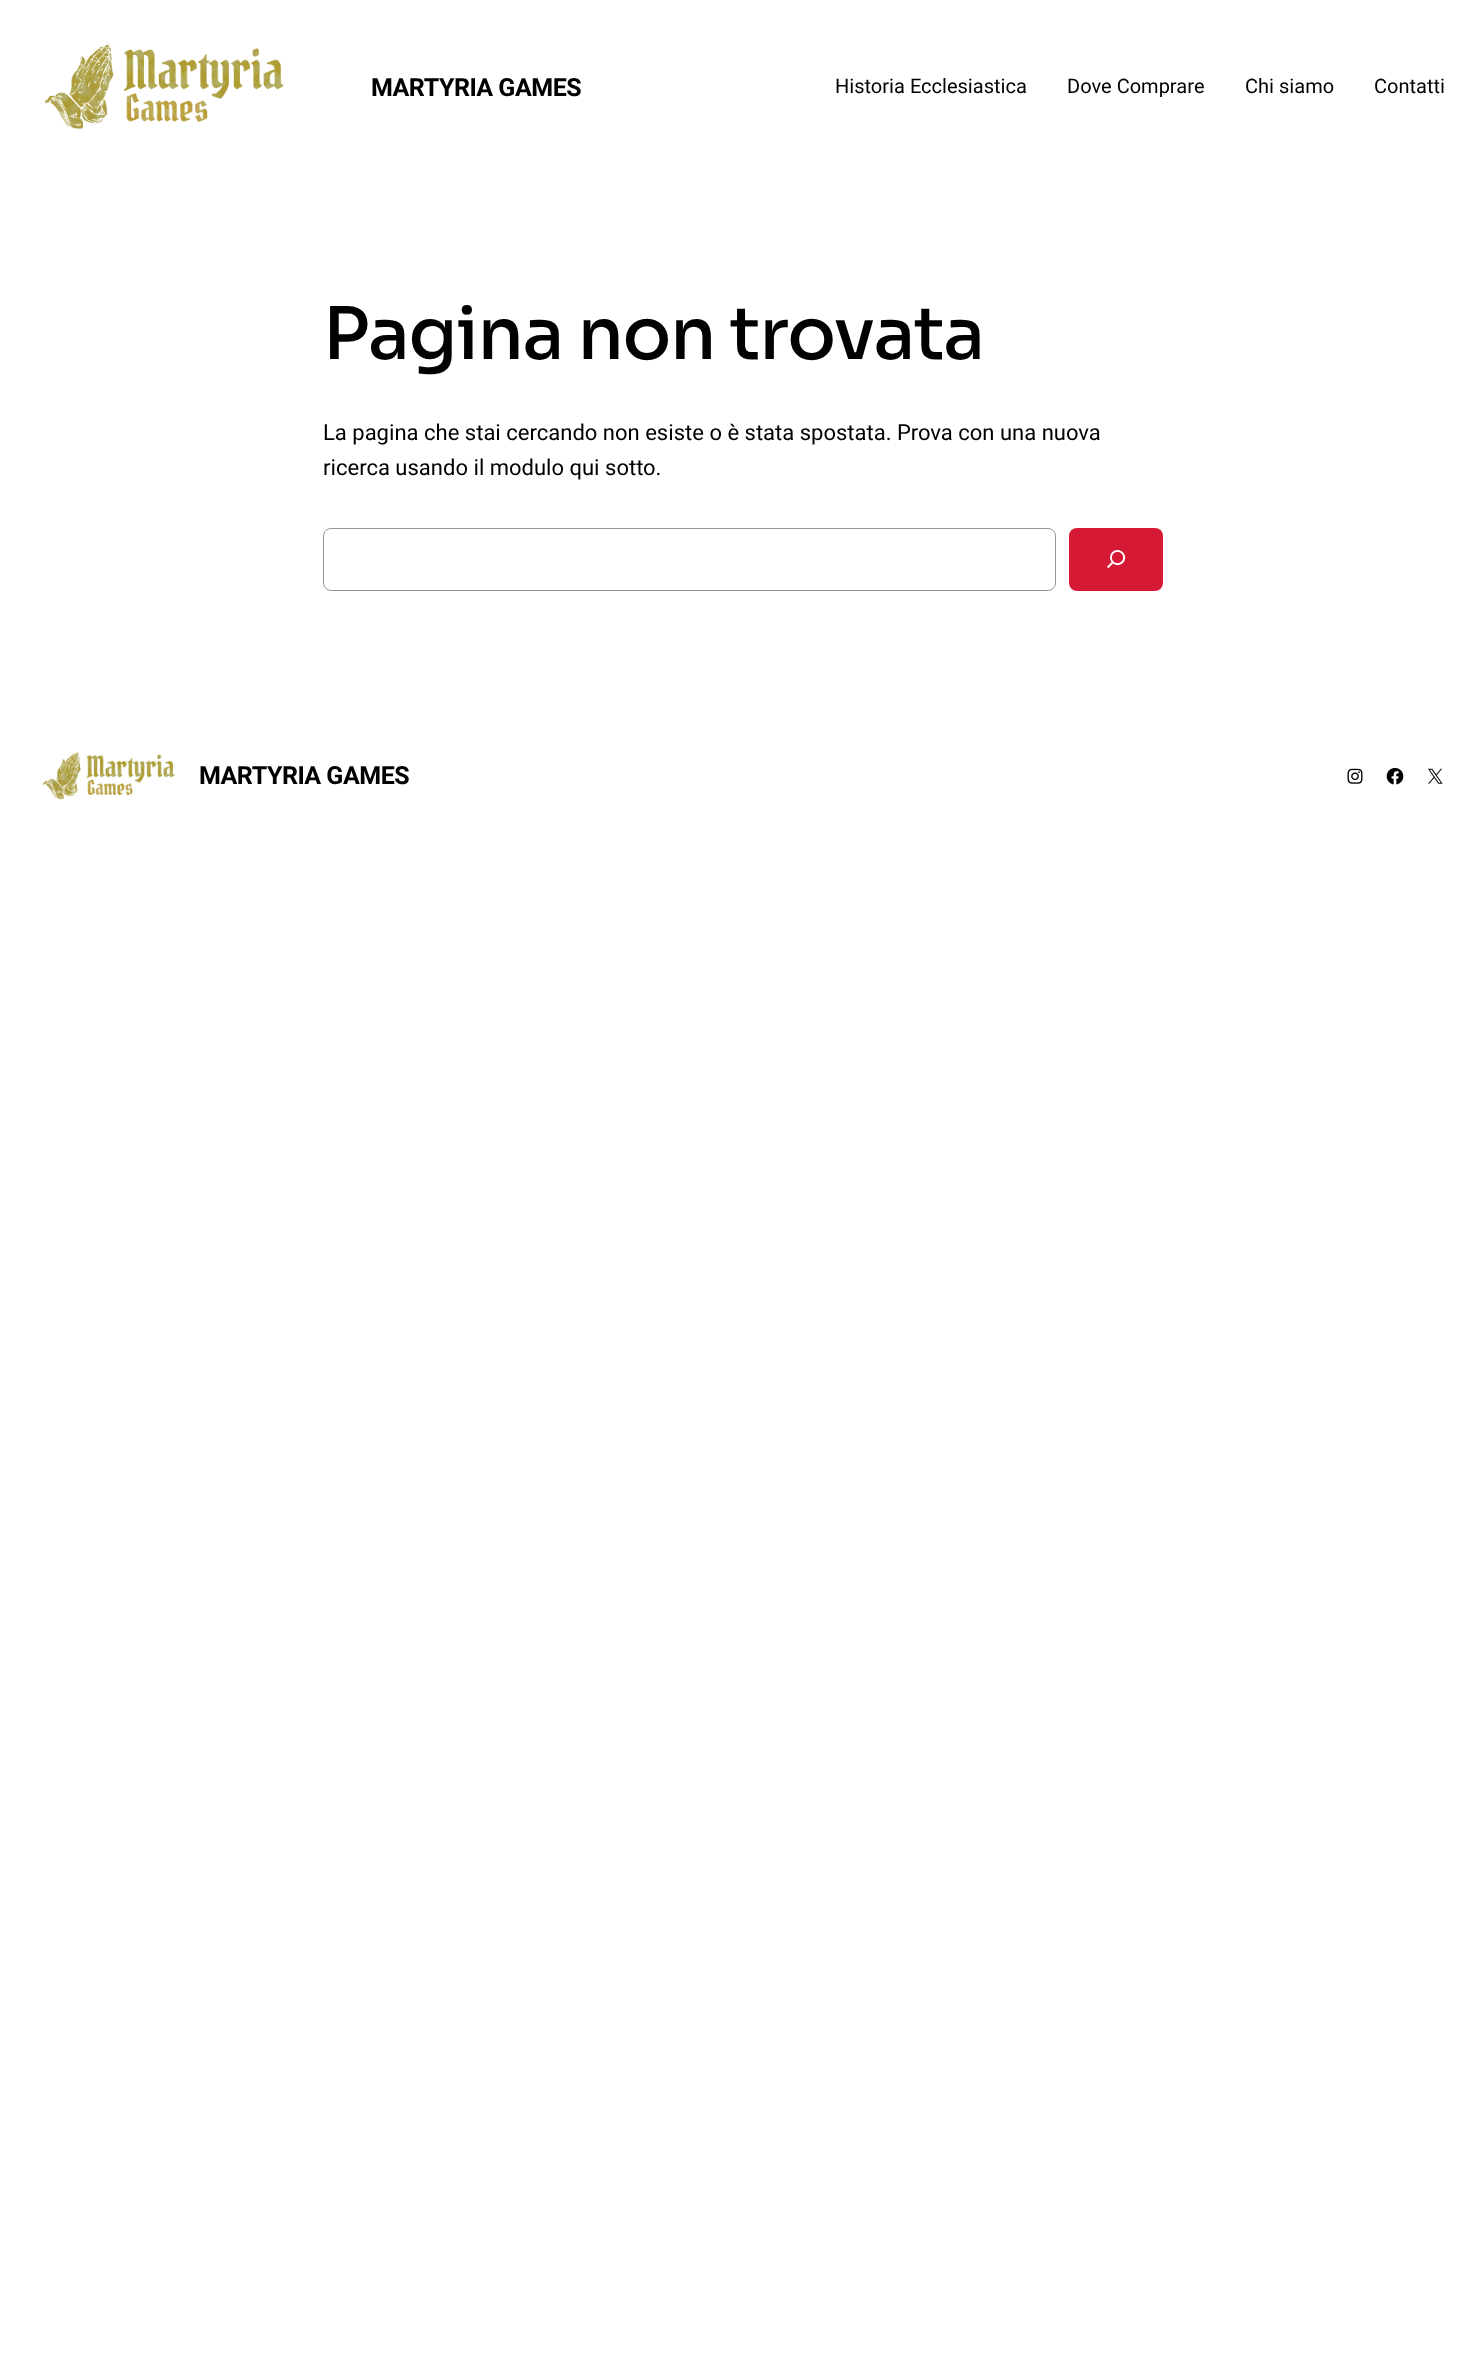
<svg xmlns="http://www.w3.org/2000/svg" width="1484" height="2357">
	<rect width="100%" height="100%" fill="#FFFFFF" />
	<image x="44" y="44" width="240" height="85" href="assets/img1.png" />
	<text x="371" y="96" font-family="Heebo" font-size="25" font-weight="700" letter-spacing="-0.5" fill="#010101">MARTYRIA GAMES</text>
	<g font-family="Heebo" font-size="20" fill="#010101">
		<text x="835" y="93">Historia Ecclesiastica</text>
		<text x="1067" y="93">Dove Comprare</text>
		<text x="1245" y="93">Chi siamo</text>
		<text x="1374" y="93">Contatti</text>
	</g>
	<text x="323" y="359" font-family="Sora" font-size="72.1" font-weight="500" letter-spacing="-1.4" fill="#010101">Pagina non trovata</text>
	<g font-family="Heebo" font-size="22" fill="#010101">
		<text x="323" y="440">La pagina che stai cercando non esiste o è stata spostata. Prova con una nuova</text>
		<text x="323" y="475">ricerca usando il modulo qui sotto.</text>
	</g>
	<rect x="323.5" y="528.5" width="732" height="62" rx="7.5" fill="none" stroke="#949494" />
	<rect x="1069" y="528" width="94" height="63" rx="8" fill="#D61935" />
	<image x="1107" y="550" width="19" height="19" href="assets/img2.png" />
	<image x="42" y="752" width="133" height="48" href="assets/img3.png" />
	<text x="199" y="784" font-family="Heebo" font-size="25" font-weight="700" letter-spacing="-0.5" fill="#010101">MARTYRIA GAMES</text>
	<image x="1347" y="768" width="16" height="16" href="assets/img4.png" />
	<image x="1386" y="767" width="18" height="18" href="assets/img5.png" />
	<image x="1428" y="768" width="15" height="16" href="assets/img6.png" />
</svg>
